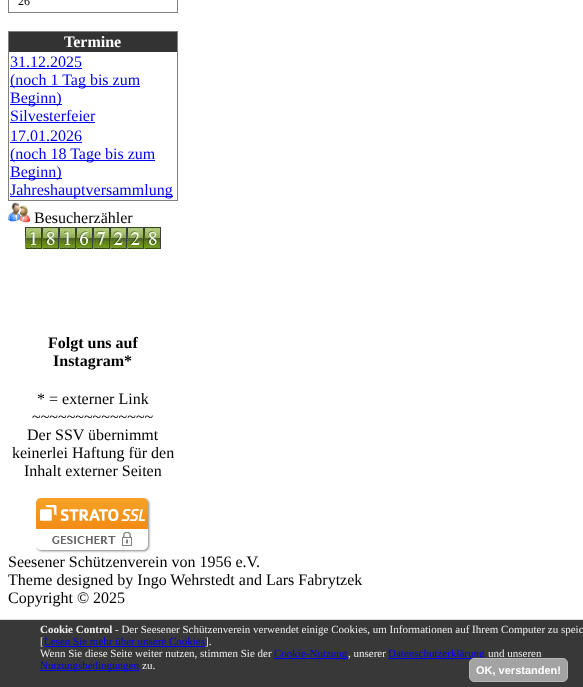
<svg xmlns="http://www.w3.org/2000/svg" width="583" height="687">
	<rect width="100%" height="100%" fill="#FFFFFF" />
	<rect x="177" y="0" width="1" height="13" fill="#808080" />
	<rect x="8" y="12" width="170" height="1" fill="#808080" />
	<rect x="8" y="0" width="1" height="13" fill="#808080" />
	<text x="18" y="5" font-family="Liberation Serif" font-size="12" fill="#000000">26</text>
	<rect x="8" y="31" width="170" height="1" fill="#808080" />
	<rect x="177" y="31" width="1" height="170" fill="#808080" />
	<rect x="8" y="200" width="170" height="1" fill="#808080" />
	<rect x="8" y="31" width="1" height="170" fill="#808080" />
	<rect x="9" y="32" width="168" height="20" fill="#333333" />
	<text x="64" y="47" font-family="Liberation Serif" font-size="16" font-weight="700" fill="#FFFFFF">Termine</text>
	<text x="10" y="67" font-family="Liberation Serif" font-size="16" fill="#0000EE">31.12.2025</text>
	<rect x="10" y="68" width="72" height="1" fill="#0000EE" />
	<rect x="10" y="86" width="130" height="1" fill="#0000EE" />
	<text x="10" y="85" font-family="Liberation Serif" font-size="16" fill="#0000EE">(noch 1 Tag bis zum</text>
	<rect x="10" y="104" width="52" height="1" fill="#0000EE" />
	<g font-family="Liberation Serif" font-size="16" fill="#0000EE">
		<text x="10" y="103">Beginn)</text>
		<text x="10" y="121">Silvesterfeier</text>
	</g>
	<rect x="10" y="122" width="85" height="1" fill="#0000EE" />
	<text x="10" y="141" font-family="Liberation Serif" font-size="16" fill="#0000EE">17.01.2026</text>
	<rect x="10" y="142" width="72" height="1" fill="#0000EE" />
	<rect x="10" y="160" width="145" height="1" fill="#0000EE" />
	<text x="10" y="159" font-family="Liberation Serif" font-size="16" fill="#0000EE">(noch 18 Tage bis zum</text>
	<rect x="10" y="178" width="52" height="1" fill="#0000EE" />
	<text x="10" y="177" font-family="Liberation Serif" font-size="16" fill="#0000EE">Beginn)</text>
	<rect x="10" y="196" width="163" height="1" fill="#0000EE" />
	<text x="10" y="195" font-family="Liberation Serif" font-size="16" fill="#0000EE">Jahreshauptversammlung</text>
	<image x="8" y="202" width="22" height="21" href="assets/img1.png" />
	<text x="34" y="223" font-family="Liberation Serif" font-size="16" fill="#000000">Besucherzähler</text>
	<image x="25" y="227" width="17" height="22" href="assets/img2.png" />
	<image x="42" y="227" width="17" height="22" href="assets/img3.png" />
	<image x="59" y="227" width="17" height="22" href="assets/img2.png" />
	<image x="76" y="227" width="17" height="22" href="assets/img4.png" />
	<image x="93" y="227" width="17" height="22" href="assets/img5.png" />
	<image x="110" y="227" width="17" height="22" href="assets/img6.png" />
	<image x="127" y="227" width="17" height="22" href="assets/img6.png" />
	<image x="144" y="227" width="17" height="22" href="assets/img3.png" />
	<g font-family="Liberation Serif" font-size="16" font-weight="700" fill="#000000">
		<text x="48" y="348">Folgt uns auf</text>
		<text x="53" y="366">Instagram*</text>
	</g>
	<g font-family="Liberation Serif" font-size="16" fill="#000000">
		<text x="37" y="404">* = externer Link</text>
		<text x="32" y="422">~~~~~~~~~~~~~~</text>
		<text x="27" y="440">Der SSV übernimmt</text>
		<text x="12" y="458">keinerlei Haftung für den</text>
		<text x="24" y="476">Inhalt externer Seiten</text>
	</g>
	<image x="36" y="498" width="115" height="55" href="assets/img7.png" />
	<rect x="0" y="620" width="583" height="67" fill="#383838" />
	<rect x="0" y="619" width="583" height="1" fill="#DDDDDD" />
	<text x="40" y="633" font-family="Liberation Serif" font-size="11" font-weight="700" fill="#EEEEEE">Cookie Control</text>
	<g font-family="Liberation Serif" font-size="11" fill="#EEEEEE">
		<text x="115" y="633">- Der Seesener Schützenverein verwendet einige Cookies, um Informationen auf Ihrem Computer zu speic</text>
		<text x="40" y="645">[</text>
	</g>
	<text x="44" y="645" font-family="Liberation Serif" font-size="11" fill="#0000EE">Lesen Sie mehr über unsere Cookies</text>
	<rect x="44" y="646" width="161" height="1" fill="#0000EE" />
	<g font-family="Liberation Serif" font-size="11" fill="#EEEEEE">
		<text x="205" y="645">].</text>
		<text x="40" y="657">Wenn Sie diese Seite weiter nutzen, stimmen Sie der</text>
	</g>
	<rect x="274" y="658" width="74" height="1" fill="#0000EE" />
	<text x="274" y="657" font-family="Liberation Serif" font-size="11" fill="#0000EE">Cookie-Nutzung</text>
	<text x="348" y="657" font-family="Liberation Serif" font-size="11" fill="#EEEEEE">, unserer</text>
	<rect x="388" y="658" width="86" height="1" fill="#0000EE" />
	<text x="388" y="657" font-family="Liberation Serif" font-size="11" fill="#0000EE">Datenschutzerklärung</text>
	<text x="488" y="657" font-family="Liberation Serif" font-size="11" fill="#EEEEEE">und unseren</text>
	<rect x="40" y="670" width="99" height="1" fill="#0000EE" />
	<text x="40" y="669" font-family="Liberation Serif" font-size="11" fill="#0000EE">Nutzungsbedingungen</text>
	<text x="142" y="669" font-family="Liberation Serif" font-size="11" fill="#EEEEEE">zu.</text>
	<rect x="469.5" y="658.5" width="98" height="23" rx="4.5" fill="#A3A3A3" stroke="#B7B5B5" />
	<text x="476" y="674" font-family="Liberation Sans" font-size="11" font-weight="700" fill="#FFFFFF">OK, verstanden!</text>
	<g font-family="Liberation Serif" font-size="16" fill="#000000">
		<text x="8" y="567">Seesener Schützenverein von 1956 e.V.</text>
		<text x="8" y="585">Theme designed by Ingo Wehrstedt and Lars Fabrytzek</text>
		<text x="8" y="603">Copyright © 2025</text>
	</g>
</svg>
